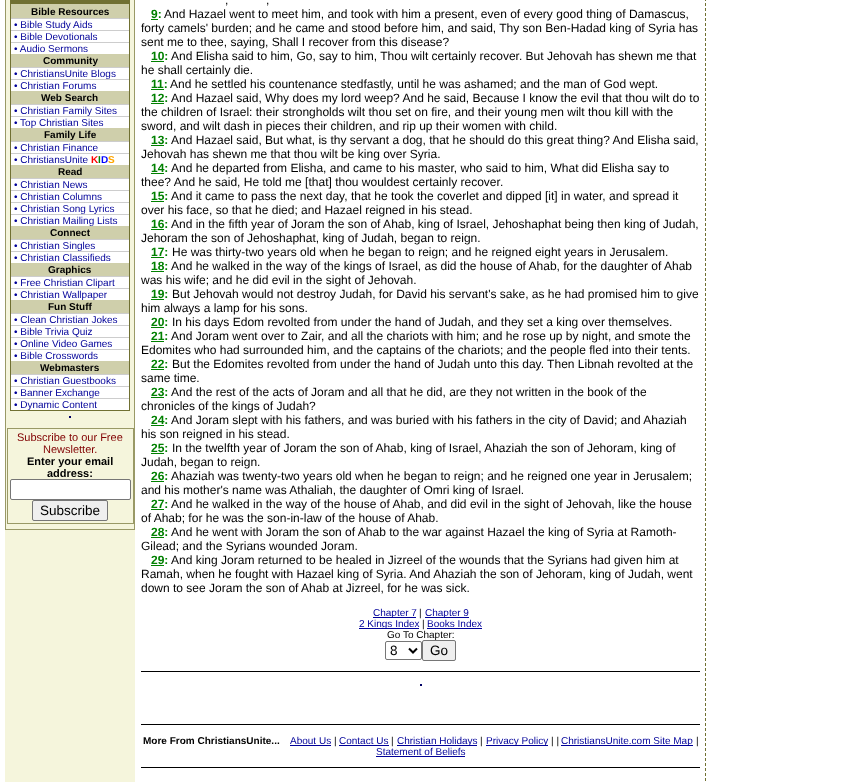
<svg xmlns="http://www.w3.org/2000/svg" width="844" height="782">
	<rect width="100%" height="100%" fill="#FFFFFF" />
	<rect x="5" y="530" width="130" height="252" fill="#F5F5DC" />
	<rect x="5" y="0" width="130" height="530" fill="#999966" />
	<rect x="6" y="0" width="128" height="529" fill="#F5F5DC" />
	<rect x="10.5" y="-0.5" width="119" height="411" fill="none" stroke="#707032" />
	<rect x="11" y="0" width="118" height="4" fill="#707032" />
	<rect x="11" y="4" width="118" height="14" fill="#CFCFAB" />
	<text x="31" y="15" font-family="Liberation Sans" font-size="10" font-weight="700" fill="#000000">Bible Resources</text>
	<rect x="11" y="18" width="118" height="1" fill="#CDCDCD" />
	<rect x="11" y="19" width="118" height="11" fill="#FFFFFF" />
	<rect x="11" y="30" width="118" height="1" fill="#CDCDCD" />
	<text x="14" y="28" font-family="Liberation Sans" font-size="10" fill="#000099">• Bible Study Aids</text>
	<rect x="11" y="31" width="118" height="11" fill="#FFFFFF" />
	<text x="14" y="40" font-family="Liberation Sans" font-size="10" fill="#000099">• Bible Devotionals</text>
	<rect x="11" y="42" width="118" height="1" fill="#CDCDCD" />
	<rect x="11" y="43" width="118" height="11" fill="#FFFFFF" />
	<text x="14" y="52" font-family="Liberation Sans" font-size="10" fill="#000099">• Audio Sermons</text>
	<rect x="11" y="54" width="118" height="13" fill="#CFCFAB" />
	<text x="43" y="64" font-family="Liberation Sans" font-size="10" font-weight="700" fill="#000000">Community</text>
	<rect x="11" y="67" width="118" height="1" fill="#CDCDCD" />
	<rect x="11" y="68" width="118" height="11" fill="#FFFFFF" />
	<rect x="11" y="79" width="118" height="1" fill="#CDCDCD" />
	<text x="14" y="77" font-family="Liberation Sans" font-size="10" fill="#000099">• ChristiansUnite Blogs</text>
	<rect x="11" y="80" width="118" height="11" fill="#FFFFFF" />
	<text x="14" y="89" font-family="Liberation Sans" font-size="10" fill="#000099">• Christian Forums</text>
	<rect x="11" y="91" width="118" height="13" fill="#CFCFAB" />
	<text x="41" y="101" font-family="Liberation Sans" font-size="10" font-weight="700" fill="#000000">Web Search</text>
	<rect x="11" y="104" width="118" height="1" fill="#CDCDCD" />
	<rect x="11" y="105" width="118" height="11" fill="#FFFFFF" />
	<rect x="11" y="116" width="118" height="1" fill="#CDCDCD" />
	<text x="14" y="114" font-family="Liberation Sans" font-size="10" fill="#000099">• Christian Family Sites</text>
	<rect x="11" y="117" width="118" height="11" fill="#FFFFFF" />
	<rect x="11" y="128" width="118" height="13" fill="#CFCFAB" />
	<text x="14" y="126" font-family="Liberation Sans" font-size="10" fill="#000099">• Top Christian Sites</text>
	<text x="44" y="138" font-family="Liberation Sans" font-size="10" font-weight="700" fill="#000000">Family Life</text>
	<rect x="11" y="141" width="118" height="1" fill="#CDCDCD" />
	<rect x="11" y="142" width="118" height="11" fill="#FFFFFF" />
	<text x="14" y="151" font-family="Liberation Sans" font-size="10" fill="#000099">• Christian Finance</text>
	<rect x="11" y="153" width="118" height="1" fill="#CDCDCD" />
	<rect x="11" y="154" width="118" height="11" fill="#FFFFFF" />
	<text x="14" y="163" font-family="Liberation Sans" font-size="10" fill="#000099">• ChristiansUnite</text>
	<text x="91" y="163" font-family="Liberation Sans" font-size="10" font-weight="700" fill="#FF0000">K</text>
	<text x="98" y="163" font-family="Liberation Sans" font-size="10" font-weight="700" fill="#008000">I</text>
	<text x="101" y="163" font-family="Liberation Sans" font-size="10" font-weight="700" fill="#0000FF">D</text>
	<text x="108" y="163" font-family="Liberation Sans" font-size="10" font-weight="700" fill="#FFA500">S</text>
	<rect x="11" y="165" width="118" height="13" fill="#CFCFAB" />
	<text x="58" y="175" font-family="Liberation Sans" font-size="10" font-weight="700" fill="#000000">Read</text>
	<rect x="11" y="178" width="118" height="1" fill="#CDCDCD" />
	<rect x="11" y="179" width="118" height="11" fill="#FFFFFF" />
	<text x="14" y="188" font-family="Liberation Sans" font-size="10" fill="#000099">• Christian News</text>
	<rect x="11" y="190" width="118" height="1" fill="#CDCDCD" />
	<rect x="11" y="191" width="118" height="11" fill="#FFFFFF" />
	<text x="14" y="200" font-family="Liberation Sans" font-size="10" fill="#000099">• Christian Columns</text>
	<rect x="11" y="202" width="118" height="1" fill="#CDCDCD" />
	<rect x="11" y="203" width="118" height="11" fill="#FFFFFF" />
	<rect x="11" y="214" width="118" height="1" fill="#CDCDCD" />
	<text x="14" y="212" font-family="Liberation Sans" font-size="10" fill="#000099">• Christian Song Lyrics</text>
	<rect x="11" y="215" width="118" height="11" fill="#FFFFFF" />
	<rect x="11" y="226" width="118" height="13" fill="#CFCFAB" />
	<text x="14" y="224" font-family="Liberation Sans" font-size="10" fill="#000099">• Christian Mailing Lists</text>
	<text x="50" y="236" font-family="Liberation Sans" font-size="10" font-weight="700" fill="#000000">Connect</text>
	<rect x="11" y="239" width="118" height="1" fill="#CDCDCD" />
	<rect x="11" y="240" width="118" height="11" fill="#FFFFFF" />
	<rect x="11" y="251" width="118" height="1" fill="#CDCDCD" />
	<text x="14" y="249" font-family="Liberation Sans" font-size="10" fill="#000099">• Christian Singles</text>
	<rect x="11" y="252" width="118" height="11" fill="#FFFFFF" />
	<text x="14" y="261" font-family="Liberation Sans" font-size="10" fill="#000099">• Christian Classifieds</text>
	<rect x="11" y="263" width="118" height="13" fill="#CFCFAB" />
	<text x="48" y="273" font-family="Liberation Sans" font-size="10" font-weight="700" fill="#000000">Graphics</text>
	<rect x="11" y="276" width="118" height="1" fill="#CDCDCD" />
	<rect x="11" y="277" width="118" height="11" fill="#FFFFFF" />
	<rect x="11" y="288" width="118" height="1" fill="#CDCDCD" />
	<text x="14" y="286" font-family="Liberation Sans" font-size="10" fill="#000099">• Free Christian Clipart</text>
	<rect x="11" y="289" width="118" height="11" fill="#FFFFFF" />
	<rect x="11" y="300" width="118" height="13" fill="#CFCFAB" />
	<text x="14" y="298" font-family="Liberation Sans" font-size="10" fill="#000099">• Christian Wallpaper</text>
	<text x="48" y="310" font-family="Liberation Sans" font-size="10" font-weight="700" fill="#000000">Fun Stuff</text>
	<rect x="11" y="313" width="118" height="1" fill="#CDCDCD" />
	<rect x="11" y="314" width="118" height="11" fill="#FFFFFF" />
	<text x="14" y="323" font-family="Liberation Sans" font-size="10" fill="#000099">• Clean Christian Jokes</text>
	<rect x="11" y="325" width="118" height="1" fill="#CDCDCD" />
	<rect x="11" y="326" width="118" height="11" fill="#FFFFFF" />
	<text x="14" y="335" font-family="Liberation Sans" font-size="10" fill="#000099">• Bible Trivia Quiz</text>
	<rect x="11" y="337" width="118" height="1" fill="#CDCDCD" />
	<rect x="11" y="338" width="118" height="11" fill="#FFFFFF" />
	<text x="14" y="347" font-family="Liberation Sans" font-size="10" fill="#000099">• Online Video Games</text>
	<rect x="11" y="349" width="118" height="1" fill="#CDCDCD" />
	<rect x="11" y="350" width="118" height="11" fill="#FFFFFF" />
	<text x="14" y="359" font-family="Liberation Sans" font-size="10" fill="#000099">• Bible Crosswords</text>
	<rect x="11" y="361" width="118" height="13" fill="#CFCFAB" />
	<text x="40" y="371" font-family="Liberation Sans" font-size="10" font-weight="700" fill="#000000">Webmasters</text>
	<rect x="11" y="374" width="118" height="1" fill="#CDCDCD" />
	<rect x="11" y="375" width="118" height="11" fill="#FFFFFF" />
	<text x="14" y="384" font-family="Liberation Sans" font-size="10" fill="#000099">• Christian Guestbooks</text>
	<rect x="11" y="386" width="118" height="1" fill="#CDCDCD" />
	<rect x="11" y="387" width="118" height="11" fill="#FFFFFF" />
	<rect x="11" y="398" width="118" height="1" fill="#CDCDCD" />
	<text x="14" y="396" font-family="Liberation Sans" font-size="10" fill="#000099">• Banner Exchange</text>
	<rect x="11" y="399" width="118" height="11" fill="#FFFFFF" />
	<text x="14" y="408" font-family="Liberation Sans" font-size="10" fill="#000099">• Dynamic Content</text>
	<rect x="69" y="416" width="2" height="2" fill="#000066" />
	<rect x="7" y="428" width="127" height="96" fill="#999966" />
	<rect x="8" y="429" width="125" height="94" fill="#F5F5DC" />
	<g font-family="Liberation Sans" font-size="11" fill="#800000">
		<text x="17" y="441">Subscribe to our Free</text>
		<text x="43" y="453">Newsletter.</text>
	</g>
	<g font-family="Liberation Sans" font-size="11" font-weight="700" fill="#000000">
		<text x="27" y="465">Enter your email</text>
		<text x="47" y="477">address:</text>
	</g>
	<rect x="10.5" y="479.5" width="120" height="20" rx="1.5" fill="#FFFFFF" stroke="#767676" />
	<rect x="32.5" y="500.5" width="75" height="20" rx="1.5" fill="#EFEFEF" stroke="#767676" />
	<text x="40" y="515" font-family="Liberation Sans" font-size="13.5" fill="#000000">Subscribe</text>
	<g font-family="Liberation Sans" font-size="12" fill="#000000">
		<text x="225" y="4">,</text>
		<text x="266" y="4">,</text>
	</g>
	<text x="151" y="18" font-family="Liberation Sans" font-size="12" font-weight="700" fill="#008000">9:</text>
	<rect x="151" y="19" width="7" height="1" fill="#008000" />
	<g font-family="Liberation Sans" font-size="12" fill="#000000">
		<text x="164" y="18">And Hazael went to meet him, and took with him a present, even of every good thing of Damascus,</text>
		<text x="141" y="32">forty camels' burden; and he came and stood before him, and said, Thy son Ben-Hadad king of Syria has</text>
		<text x="141" y="46">sent me to thee, saying, Shall I recover from this disease?</text>
	</g>
	<text x="151" y="60" font-family="Liberation Sans" font-size="12" font-weight="700" fill="#008000">10:</text>
	<rect x="151" y="61" width="13" height="1" fill="#008000" />
	<g font-family="Liberation Sans" font-size="12" fill="#000000">
		<text x="171" y="60">And Elisha said to him, Go, say to him, Thou wilt certainly recover. But Jehovah has shewn me that</text>
		<text x="141" y="74">he shall certainly die.</text>
	</g>
	<text x="151" y="88" font-family="Liberation Sans" font-size="12" font-weight="700" fill="#008000">11:</text>
	<rect x="151" y="89" width="13" height="1" fill="#008000" />
	<text x="170" y="88" font-family="Liberation Sans" font-size="12" fill="#000000">And he settled his countenance stedfastly, until he was ashamed; and the man of God wept.</text>
	<text x="151" y="102" font-family="Liberation Sans" font-size="12" font-weight="700" fill="#008000">12:</text>
	<rect x="151" y="103" width="13" height="1" fill="#008000" />
	<g font-family="Liberation Sans" font-size="12" fill="#000000">
		<text x="171" y="102">And Hazael said, Why does my lord weep? And he said, Because I know the evil that thou wilt do to</text>
		<text x="141" y="116">the children of Israel: their strongholds wilt thou set on fire, and their young men wilt thou kill with the</text>
		<text x="141" y="130">sword, and wilt dash in pieces their children, and rip up their women with child.</text>
	</g>
	<text x="151" y="144" font-family="Liberation Sans" font-size="12" font-weight="700" fill="#008000">13:</text>
	<rect x="151" y="145" width="13" height="1" fill="#008000" />
	<g font-family="Liberation Sans" font-size="12" fill="#000000">
		<text x="171" y="144">And Hazael said, But what, is thy servant a dog, that he should do this great thing? And Elisha said,</text>
		<text x="141" y="158">Jehovah has shewn me that thou wilt be king over Syria.</text>
	</g>
	<text x="151" y="172" font-family="Liberation Sans" font-size="12" font-weight="700" fill="#008000">14:</text>
	<rect x="151" y="173" width="13" height="1" fill="#008000" />
	<g font-family="Liberation Sans" font-size="12" fill="#000000">
		<text x="171" y="172">And he departed from Elisha, and came to his master, who said to him, What did Elisha say to</text>
		<text x="141" y="186">thee? And he said, He told me [that] thou wouldest certainly recover.</text>
	</g>
	<text x="151" y="200" font-family="Liberation Sans" font-size="12" font-weight="700" fill="#008000">15:</text>
	<rect x="151" y="201" width="13" height="1" fill="#008000" />
	<g font-family="Liberation Sans" font-size="12" fill="#000000">
		<text x="171" y="200">And it came to pass the next day, that he took the coverlet and dipped [it] in water, and spread it</text>
		<text x="141" y="214">over his face, so that he died; and Hazael reigned in his stead.</text>
	</g>
	<text x="151" y="228" font-family="Liberation Sans" font-size="12" font-weight="700" fill="#008000">16:</text>
	<rect x="151" y="229" width="13" height="1" fill="#008000" />
	<g font-family="Liberation Sans" font-size="12" fill="#000000">
		<text x="171" y="228">And in the fifth year of Joram the son of Ahab, king of Israel, Jehoshaphat being then king of Judah,</text>
		<text x="141" y="242">Jehoram the son of Jehoshaphat, king of Judah, began to reign.</text>
	</g>
	<text x="151" y="256" font-family="Liberation Sans" font-size="12" font-weight="700" fill="#008000">17:</text>
	<rect x="151" y="257" width="13" height="1" fill="#008000" />
	<text x="172" y="256" font-family="Liberation Sans" font-size="12" fill="#000000">He was thirty-two years old when he began to reign; and he reigned eight years in Jerusalem.</text>
	<text x="151" y="270" font-family="Liberation Sans" font-size="12" font-weight="700" fill="#008000">18:</text>
	<rect x="151" y="271" width="13" height="1" fill="#008000" />
	<g font-family="Liberation Sans" font-size="12" fill="#000000">
		<text x="171" y="270">And he walked in the way of the kings of Israel, as did the house of Ahab, for the daughter of Ahab</text>
		<text x="141" y="284">was his wife; and he did evil in the sight of Jehovah.</text>
	</g>
	<text x="151" y="298" font-family="Liberation Sans" font-size="12" font-weight="700" fill="#008000">19:</text>
	<rect x="151" y="299" width="13" height="1" fill="#008000" />
	<g font-family="Liberation Sans" font-size="12" fill="#000000">
		<text x="172" y="298">But Jehovah would not destroy Judah, for David his servant's sake, as he had promised him to give</text>
		<text x="141" y="312">him always a lamp for his sons.</text>
	</g>
	<text x="151" y="326" font-family="Liberation Sans" font-size="12" font-weight="700" fill="#008000">20:</text>
	<rect x="151" y="327" width="13" height="1" fill="#008000" />
	<text x="172" y="326" font-family="Liberation Sans" font-size="12" fill="#000000">In his days Edom revolted from under the hand of Judah, and they set a king over themselves.</text>
	<text x="151" y="340" font-family="Liberation Sans" font-size="12" font-weight="700" fill="#008000">21:</text>
	<rect x="151" y="341" width="13" height="1" fill="#008000" />
	<g font-family="Liberation Sans" font-size="12" fill="#000000">
		<text x="171" y="340">And Joram went over to Zair, and all the chariots with him; and he rose up by night, and smote the</text>
		<text x="141" y="354">Edomites who had surrounded him, and the captains of the chariots; and the people fled into their tents.</text>
	</g>
	<text x="151" y="368" font-family="Liberation Sans" font-size="12" font-weight="700" fill="#008000">22:</text>
	<rect x="151" y="369" width="13" height="1" fill="#008000" />
	<g font-family="Liberation Sans" font-size="12" fill="#000000">
		<text x="172" y="368">But the Edomites revolted from under the hand of Judah unto this day. Then Libnah revolted at the</text>
		<text x="141" y="382">same time.</text>
	</g>
	<text x="151" y="396" font-family="Liberation Sans" font-size="12" font-weight="700" fill="#008000">23:</text>
	<rect x="151" y="397" width="13" height="1" fill="#008000" />
	<g font-family="Liberation Sans" font-size="12" fill="#000000">
		<text x="171" y="396">And the rest of the acts of Joram and all that he did, are they not written in the book of the</text>
		<text x="141" y="410">chronicles of the kings of Judah?</text>
	</g>
	<text x="151" y="424" font-family="Liberation Sans" font-size="12" font-weight="700" fill="#008000">24:</text>
	<rect x="151" y="425" width="13" height="1" fill="#008000" />
	<g font-family="Liberation Sans" font-size="12" fill="#000000">
		<text x="171" y="424">And Joram slept with his fathers, and was buried with his fathers in the city of David; and Ahaziah</text>
		<text x="141" y="438">his son reigned in his stead.</text>
	</g>
	<text x="151" y="452" font-family="Liberation Sans" font-size="12" font-weight="700" fill="#008000">25:</text>
	<rect x="151" y="453" width="13" height="1" fill="#008000" />
	<g font-family="Liberation Sans" font-size="12" fill="#000000">
		<text x="172" y="452">In the twelfth year of Joram the son of Ahab, king of Israel, Ahaziah the son of Jehoram, king of</text>
		<text x="141" y="466">Judah, began to reign.</text>
	</g>
	<text x="151" y="480" font-family="Liberation Sans" font-size="12" font-weight="700" fill="#008000">26:</text>
	<rect x="151" y="481" width="13" height="1" fill="#008000" />
	<g font-family="Liberation Sans" font-size="12" fill="#000000">
		<text x="171" y="480">Ahaziah was twenty-two years old when he began to reign; and he reigned one year in Jerusalem;</text>
		<text x="141" y="494">and his mother's name was Athaliah, the daughter of Omri king of Israel.</text>
	</g>
	<text x="151" y="508" font-family="Liberation Sans" font-size="12" font-weight="700" fill="#008000">27:</text>
	<rect x="151" y="509" width="13" height="1" fill="#008000" />
	<g font-family="Liberation Sans" font-size="12" fill="#000000">
		<text x="171" y="508">And he walked in the way of the house of Ahab, and did evil in the sight of Jehovah, like the house</text>
		<text x="141" y="522">of Ahab; for he was the son-in-law of the house of Ahab.</text>
	</g>
	<text x="151" y="536" font-family="Liberation Sans" font-size="12" font-weight="700" fill="#008000">28:</text>
	<rect x="151" y="537" width="13" height="1" fill="#008000" />
	<g font-family="Liberation Sans" font-size="12" fill="#000000">
		<text x="171" y="536">And he went with Joram the son of Ahab to the war against Hazael the king of Syria at Ramoth-</text>
		<text x="141" y="550">Gilead; and the Syrians wounded Joram.</text>
	</g>
	<text x="151" y="564" font-family="Liberation Sans" font-size="12" font-weight="700" fill="#008000">29:</text>
	<rect x="151" y="565" width="13" height="1" fill="#008000" />
	<g font-family="Liberation Sans" font-size="12" fill="#000000">
		<text x="171" y="564">And king Joram returned to be healed in Jizreel of the wounds that the Syrians had given him at</text>
		<text x="141" y="578">Ramah, when he fought with Hazael king of Syria. And Ahaziah the son of Jehoram, king of Judah, went</text>
		<text x="141" y="592">down to see Joram the son of Ahab at Jizreel, for he was sick.</text>
	</g>
	<rect x="373" y="617" width="43" height="1" fill="#000099" />
	<text x="373" y="616" font-family="Liberation Sans" font-size="10" fill="#000099">Chapter 7</text>
	<text x="419" y="616" font-family="Liberation Sans" font-size="10" fill="#000000">|</text>
	<rect x="425" y="617" width="44" height="1" fill="#000099" />
	<text x="425" y="616" font-family="Liberation Sans" font-size="10" fill="#000099">Chapter 9</text>
	<rect x="359" y="628" width="60" height="1" fill="#000099" />
	<text x="359" y="627" font-family="Liberation Sans" font-size="10" fill="#000099">2 Kings Index</text>
	<text x="422" y="627" font-family="Liberation Sans" font-size="10" fill="#000000">|</text>
	<text x="427" y="627" font-family="Liberation Sans" font-size="10" fill="#000099">Books Index</text>
	<rect x="427" y="628" width="55" height="1" fill="#000099" />
	<text x="387" y="638" font-family="Liberation Sans" font-size="10" fill="#000000">Go To Chapter:</text>
	<rect x="385.5" y="641.5" width="36" height="18" rx="1.5" fill="none" stroke="#767676" />
	<path d="M409 648.5L413 652.5L417 648.5" fill="none" stroke="#000000" stroke-width="2" />
	<text x="390" y="655" font-family="Liberation Sans" font-size="13.5" fill="#000000">8</text>
	<rect x="422.5" y="640.5" width="33" height="20" rx="1.5" fill="#EFEFEF" stroke="#767676" />
	<text x="430" y="655" font-family="Liberation Sans" font-size="13.5" fill="#000000">Go</text>
	<rect x="141" y="671" width="559" height="1" fill="#000000" />
	<rect x="420" y="684" width="2" height="2" fill="#000066" />
	<rect x="141" y="724" width="559" height="1" fill="#000000" />
	<text x="143" y="744" font-family="Liberation Sans" font-size="10" font-weight="700" fill="#000000">More From ChristiansUnite...</text>
	<text x="290" y="744" font-family="Liberation Sans" font-size="10" fill="#000099">About Us</text>
	<rect x="290" y="745" width="41" height="1" fill="#000099" />
	<text x="334" y="744" font-family="Liberation Sans" font-size="10" fill="#000000">|</text>
	<text x="339" y="744" font-family="Liberation Sans" font-size="10" fill="#000099">Contact Us</text>
	<rect x="339" y="745" width="50" height="1" fill="#000099" />
	<text x="391" y="744" font-family="Liberation Sans" font-size="10" fill="#000000">|</text>
	<rect x="397" y="745" width="80" height="1" fill="#000099" />
	<text x="397" y="744" font-family="Liberation Sans" font-size="10" fill="#000099">Christian Holidays</text>
	<text x="480" y="744" font-family="Liberation Sans" font-size="10" fill="#000000">|</text>
	<rect x="486" y="745" width="62" height="1" fill="#000099" />
	<text x="486" y="744" font-family="Liberation Sans" font-size="10" fill="#000099">Privacy Policy</text>
	<text x="551" y="744" font-family="Liberation Sans" font-size="10" fill="#000000">| |</text>
	<rect x="561" y="745" width="132" height="1" fill="#000099" />
	<text x="561" y="744" font-family="Liberation Sans" font-size="10" fill="#000099">ChristiansUnite.com Site Map</text>
	<text x="696" y="744" font-family="Liberation Sans" font-size="10" fill="#000000">|</text>
	<text x="376" y="755" font-family="Liberation Sans" font-size="10" fill="#000099">Statement of Beliefs</text>
	<rect x="376" y="756" width="89" height="1" fill="#000099" />
	<rect x="141" y="767" width="559" height="1" fill="#000000" />
	<path d="M705.5-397V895" fill="none" stroke="#707032" stroke-dasharray="3 2" />
</svg>
